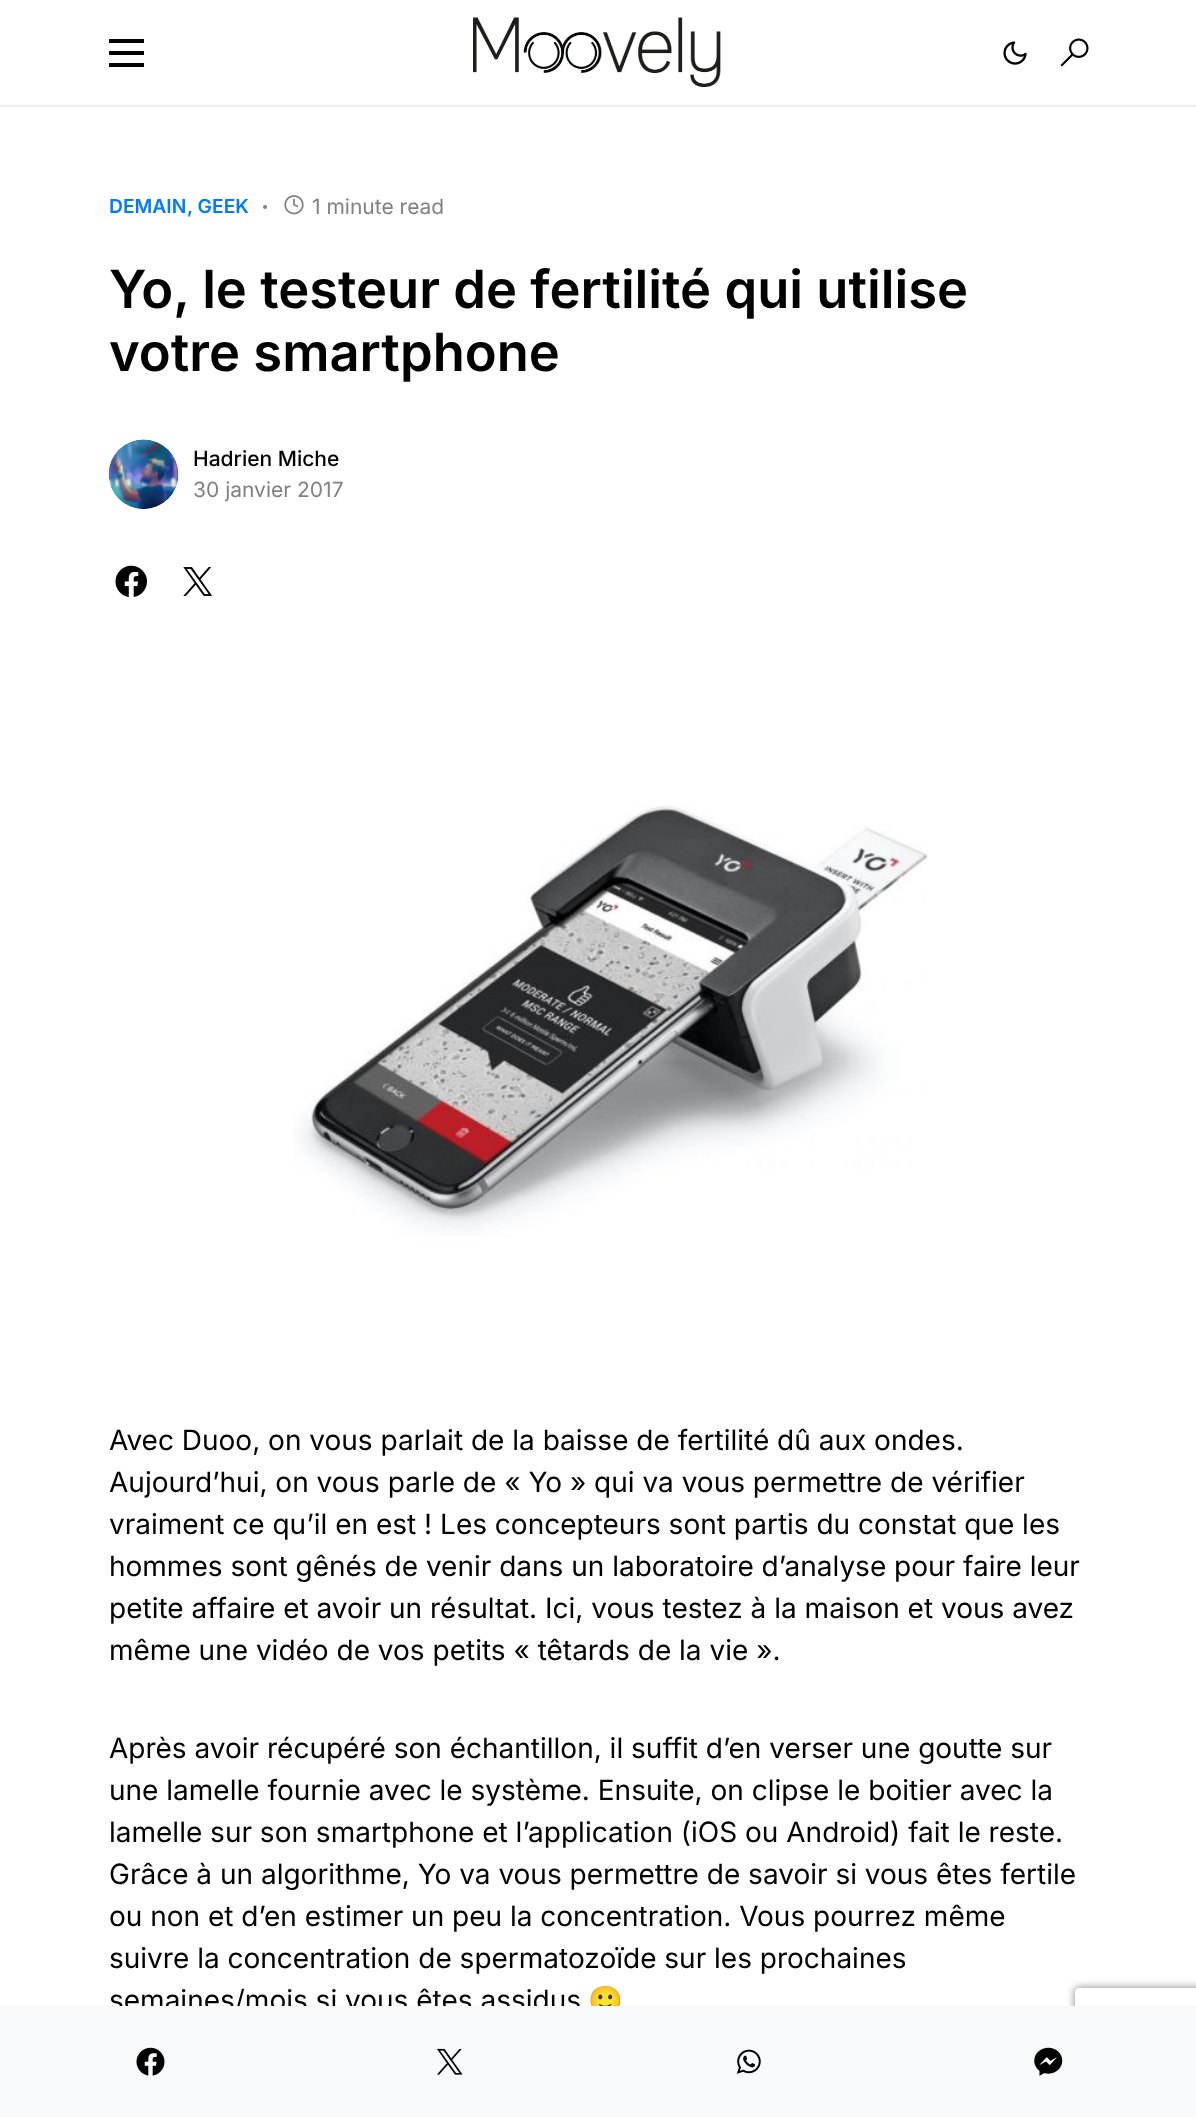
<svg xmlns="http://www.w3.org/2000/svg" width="1196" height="2117">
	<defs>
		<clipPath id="clip1"><path d="M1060 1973H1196V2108H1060ZM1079 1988H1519C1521 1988 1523 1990 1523 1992V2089C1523 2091 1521 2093 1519 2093H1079C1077 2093 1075 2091 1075 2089V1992C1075 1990 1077 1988 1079 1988Z" clip-rule="evenodd" /></clipPath>
	</defs>
	<rect width="100%" height="100%" fill="#FFFFFF" />
	<rect x="0" y="105" width="1196" height="2" fill="#E9ECEF" />
	<rect x="109" y="39" width="35" height="4" fill="#000000" />
	<rect x="109" y="51" width="35" height="4" fill="#000000" />
	<rect x="109" y="63" width="35" height="4" fill="#000000" />
	<image x="473" y="17" width="248" height="70" href="assets/img1.png" />
	<image x="1003" y="41" width="24" height="24" href="assets/img2.png" />
	<image x="1060" y="38" width="29" height="29" href="assets/img3.png" />
	<g font-family="Inter" font-size="19.25" font-weight="600" fill="#007AFF">
		<text x="109" y="213">DEMAIN</text>
		<text x="187" y="213">, GEEK</text>
	</g>
	<circle cx="265" cy="207" r="2" fill="#818181" />
	<image x="284" y="195" width="20" height="20" href="assets/img4.png" />
	<text x="312" y="214" font-family="Inter" font-size="21" fill="#818181">1 minute read</text>
	<g font-family="Inter" font-size="52.5" font-weight="600" fill="#000000">
		<text x="109" y="308">Yo, le testeur de fertilité qui utilise</text>
		<text x="109" y="371">votre smartphone</text>
	</g>
	<image x="108" y="439" width="71" height="70" href="assets/img5.png" />
	<text x="193" y="466" font-family="Inter" font-size="21" font-weight="500" fill="#000000">Hadrien Miche</text>
	<text x="193" y="497" font-family="Inter" font-size="21" fill="#818181">30 janvier 2017</text>
	<image x="115" y="565" width="32" height="32" href="assets/img6.png" />
	<image x="183" y="567" width="30" height="29" href="assets/img7.png" />
	<image x="293" y="804" width="635" height="433" href="assets/img8.png" />
	<g font-family="Inter" font-size="28" fill="#000000">
		<text x="109" y="1450">Avec Duoo, on vous parlait de la baisse de fertilité dû aux ondes.</text>
		<text x="109" y="1492">Aujourd’hui, on vous parle de « Yo » qui va vous permettre de vérifier</text>
		<text x="109" y="1534">vraiment ce qu’il en est ! Les concepteurs sont partis du constat que les</text>
		<text x="109" y="1576">hommes sont gênés de venir dans un laboratoire d’analyse pour faire leur</text>
		<text x="109" y="1618">petite affaire et avoir un résultat. Ici, vous testez à la maison et vous avez</text>
		<text x="109" y="1660">même une vidéo de vos petits « têtards de la vie ».</text>
		<text x="109" y="1758">Après avoir récupéré son échantillon, il suffit d’en verser une goutte sur</text>
		<text x="109" y="1800">une lamelle fournie avec le système. Ensuite, on clipse le boitier avec la</text>
		<text x="109" y="1842">lamelle sur son smartphone et l’application (iOS ou Android) fait le reste.</text>
		<text x="109" y="1884">Grâce à un algorithme, Yo va vous permettre de savoir si vous êtes fertile</text>
		<text x="109" y="1926">ou non et d’en estimer un peu la concentration. Vous pourrez même</text>
		<text x="109" y="1968">suivre la concentration de spermatozoïde sur les prochaines</text>
		<text x="109" y="2010">semaines/mois si vous êtes assidus</text>
	</g>
	<text x="588" y="2010" font-family="Noto Color Emoji" font-size="28" fill="#000000">🙂</text>
	<g clip-path="url(#clip1)">
		<rect x="1075" y="1988" width="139" height="105" rx="4" fill="#808080" filter="blur(4.5px)" />
	</g>
	<rect x="0" y="2006" width="1196" height="111" fill="#F8F9FA" />
	<image x="136" y="2047" width="29" height="29" href="assets/img9.png" />
	<image x="437" y="2048" width="26" height="27" href="assets/img10.png" />
	<image x="736" y="2049" width="25" height="25" href="assets/img11.png" />
	<image x="1034" y="2047" width="29" height="29" href="assets/img12.png" />
</svg>
